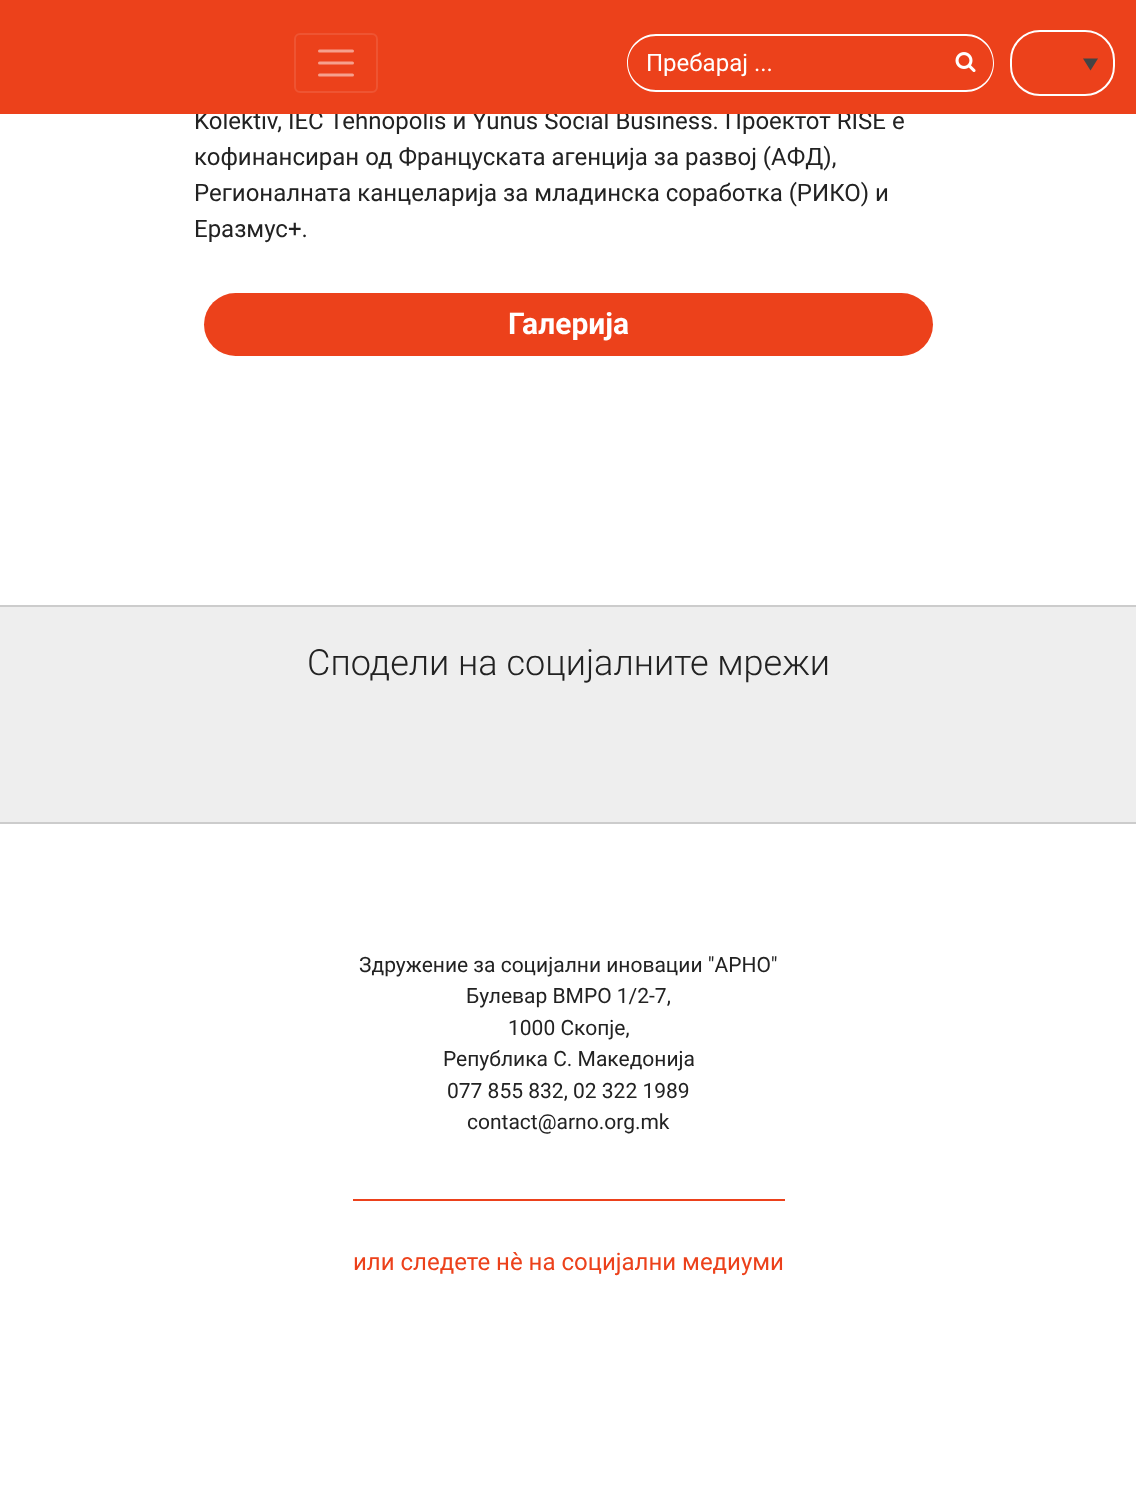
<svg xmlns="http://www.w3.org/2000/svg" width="1136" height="1485">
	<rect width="100%" height="100%" fill="#FFFFFF" />
	<text x="194" y="129" font-family="Roboto" font-size="24" fill="#222222">Kolektiv, IEC Tehnopolis и Yunus Social Business. Проектот RISE е</text>
	<rect x="0" y="0" width="1136" height="114" fill="#EC411B" />
	<rect x="295" y="34" width="82" height="58" rx="5" fill="none" stroke="#EE5432" stroke-width="2" />
	<path d="M319.5 51H352.5M319.5 63H352.5M319.5 75H352.5" fill="none" stroke="#F6A08D" stroke-width="3" stroke-linecap="round" />
	<path d="M656 34H939V92H656C640 92 627 79 627 63C627 47 640 34 656 34ZM656 36H939V90H656C641 90 628 78 628 63C628 48 641 36 656 36Z" fill="#FFFFFF" fill-rule="evenodd" />
	<text x="646" y="71" font-family="Roboto" font-size="24" fill="#FFFFFF">Пребарај ...</text>
	<path d="M938 34H966C982 34 994 47 994 63C994 79 982 92 966 92H938ZM938 36H966C981 36 993 48 993 63C993 78 981 90 966 90H938Z" fill="#FFFFFF" fill-rule="evenodd" />
	<image x="955" y="52" width="21" height="20" href="assets/img1.png" />
	<rect x="1011" y="31" width="103" height="64" rx="29" fill="none" stroke="#FFFFFF" stroke-width="2" />
	<path d="M1083 58.5H1098L1090.5 70.5Z" fill="#444444" />
	<g font-family="Roboto" font-size="24" fill="#222222">
		<text x="194" y="165">кофинансиран од Француската агенција за развој (АФД),</text>
		<text x="194" y="201">Регионалната канцеларија за младинска соработка (РИКО) и</text>
		<text x="194" y="237">Еразмус+.</text>
	</g>
	<rect x="204" y="293" width="729" height="63" rx="31.5" fill="#EC411B" />
	<text x="508" y="334" font-family="Roboto" font-size="30" font-weight="700" fill="#FFFFFF">Галерија</text>
	<rect x="0" y="607" width="1136" height="215" fill="#EEEEEE" />
	<rect x="0" y="605" width="1136" height="2" fill="#CCCCCC" />
	<rect x="0" y="822" width="1136" height="2" fill="#CCCCCC" />
	<text x="307" y="675" font-family="Roboto" font-size="36" font-weight="300" fill="#222222">Сподели на социјалните мрежи</text>
	<g font-family="Roboto" font-size="21" fill="#222222">
		<text x="359" y="972">Здружение за социјални иновации "АРНО"</text>
		<text x="466" y="1003">Булевар ВМРО 1/2-7,</text>
		<text x="508" y="1035">1000 Скопје,</text>
		<text x="443" y="1066">Република С. Македонија</text>
		<text x="447" y="1098">077 855 832, 02 322 1989</text>
		<text x="467" y="1129">contact@arno.org.mk</text>
	</g>
	<rect x="353" y="1199" width="432" height="2" fill="#EC411B" />
	<text x="353" y="1270" font-family="Roboto" font-size="24" fill="#EC411B">или следете нѐ на социјални медиуми</text>
</svg>
